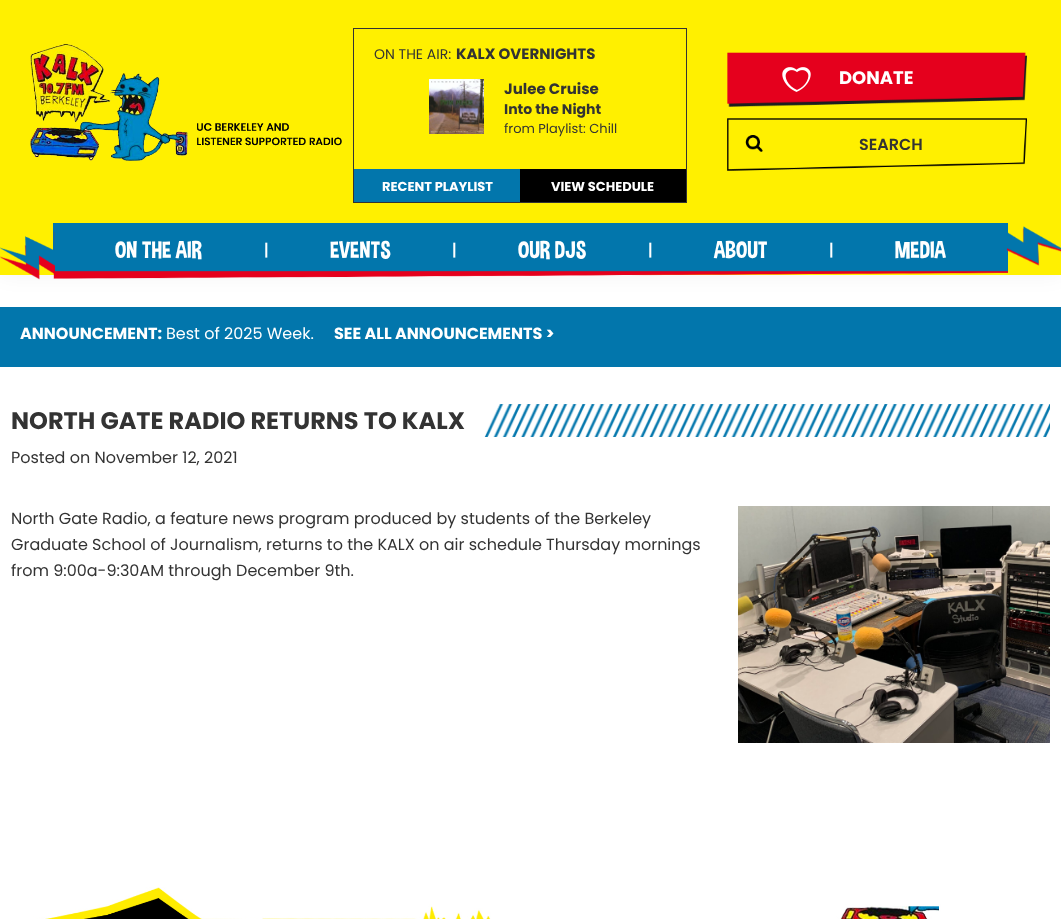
<svg xmlns="http://www.w3.org/2000/svg" width="1061" height="919">
	<rect width="100%" height="100%" fill="#FFFFFF" />
	<rect x="0" y="0" width="1061" height="275" fill="#000000" fill-opacity="0.05" filter="blur(10px)" />
	<rect x="0" y="0" width="1061" height="275" fill="#FFF000" />
	<image x="30" y="44" width="312" height="117" href="assets/img1.png" />
	<rect x="353.5" y="28.5" width="333" height="174" fill="none" stroke="#333333" />
	<text x="374" y="59" font-family="Poppins" font-size="14" fill="#333333">ON THE AIR:</text>
	<text x="456" y="59" font-family="Poppins" font-size="15" font-weight="700" fill="#333333">KALX OVERNIGHTS</text>
	<image x="429" y="79" width="55" height="55" href="assets/img2.png" />
	<text x="504" y="94" font-family="Poppins" font-size="15" font-weight="700" fill="#333333">Julee Cruise</text>
	<text x="504" y="114" font-family="Poppins" font-size="14" font-weight="700" fill="#333333">Into the Night</text>
	<text x="504" y="133" font-family="Poppins" font-size="13" fill="#333333">from Playlist: Chill</text>
	<rect x="354" y="169" width="166" height="33" fill="#0276AC" />
	<text x="382" y="191" font-family="Poppins" font-size="13" font-weight="700" fill="#FFFFFF">RECENT PLAYLIST</text>
	<rect x="520" y="169" width="166" height="33" fill="#000000" />
	<text x="551" y="191" font-family="Poppins" font-size="13" font-weight="700" fill="#FFFFFF">VIEW SCHEDULE</text>
	<image x="727" y="52" width="300" height="55" href="assets/img3.png" />
	<image x="782" y="67" width="29" height="25" href="assets/img4.png" />
	<image x="785" y="70" width="24" height="20" href="assets/img5.png" />
	<text x="839" y="84" font-family="Poppins" font-size="18" font-weight="700" fill="#FFFFFF">DONATE</text>
	<image x="727" y="118" width="300" height="53" href="assets/img6.png" />
	<text x="859" y="150" font-family="Poppins" font-size="16" font-weight="600" fill="#333333">SEARCH</text>
	<image x="53" y="223" width="955" height="56" href="assets/img7.png" />
	<image x="0" y="231" width="55" height="49" href="assets/img8.png" />
	<text x="115" y="259" font-family="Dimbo" font-size="24" fill="#FFFFFF">ON THE AIR</text>
	<text x="265" y="256" font-family="Dimbo" font-size="16" fill="#FFFFFF">|</text>
	<text x="330" y="259" font-family="Dimbo" font-size="24" fill="#FFFFFF">EVENTS</text>
	<text x="453" y="256" font-family="Dimbo" font-size="16" fill="#FFFFFF">|</text>
	<text x="518" y="259" font-family="Dimbo" font-size="24" fill="#FFFFFF">OUR DJS</text>
	<text x="649" y="256" font-family="Dimbo" font-size="16" fill="#FFFFFF">|</text>
	<text x="714" y="259" font-family="Dimbo" font-size="24" fill="#FFFFFF">ABOUT</text>
	<text x="830" y="256" font-family="Dimbo" font-size="16" fill="#FFFFFF">|</text>
	<text x="895" y="259" font-family="Dimbo" font-size="24" fill="#FFFFFF">MEDIA</text>
	<image x="1007" y="226" width="54" height="40" href="assets/img9.png" />
	<rect x="0" y="307" width="1061" height="60" fill="#0276AC" />
	<text x="20" y="339" font-family="Poppins" font-size="16" font-weight="700" fill="#FFFFFF">ANNOUNCEMENT:</text>
	<text x="166" y="339" font-family="Poppins" font-size="16" fill="#FFFFFF">Best of 2025 Week.</text>
	<text x="334" y="339" font-family="Poppins" font-size="16" font-weight="700" fill="#FFFFFF">SEE ALL ANNOUNCEMENTS &gt;</text>
	<text x="11" y="429" font-family="Poppins" font-size="24" font-weight="700" fill="#333333">NORTH GATE RADIO RETURNS TO KALX</text>
	<image x="484" y="404" width="566" height="33" href="assets/img10.png" />
	<g font-family="Poppins" font-size="16" fill="#333333">
		<text x="11" y="463">Posted on November 12, 2021</text>
		<text x="11" y="524">North Gate Radio, a feature news program produced by students of the Berkeley</text>
		<text x="11" y="550">Graduate School of Journalism, returns to the KALX on air schedule Thursday mornings</text>
		<text x="11" y="576">from 9:00a-9:30AM through December 9th.</text>
	</g>
	<image x="738" y="506" width="312" height="237" href="assets/img11.png" />
	<image x="0" y="887" width="1061" height="32" href="assets/img12.png" />
</svg>
